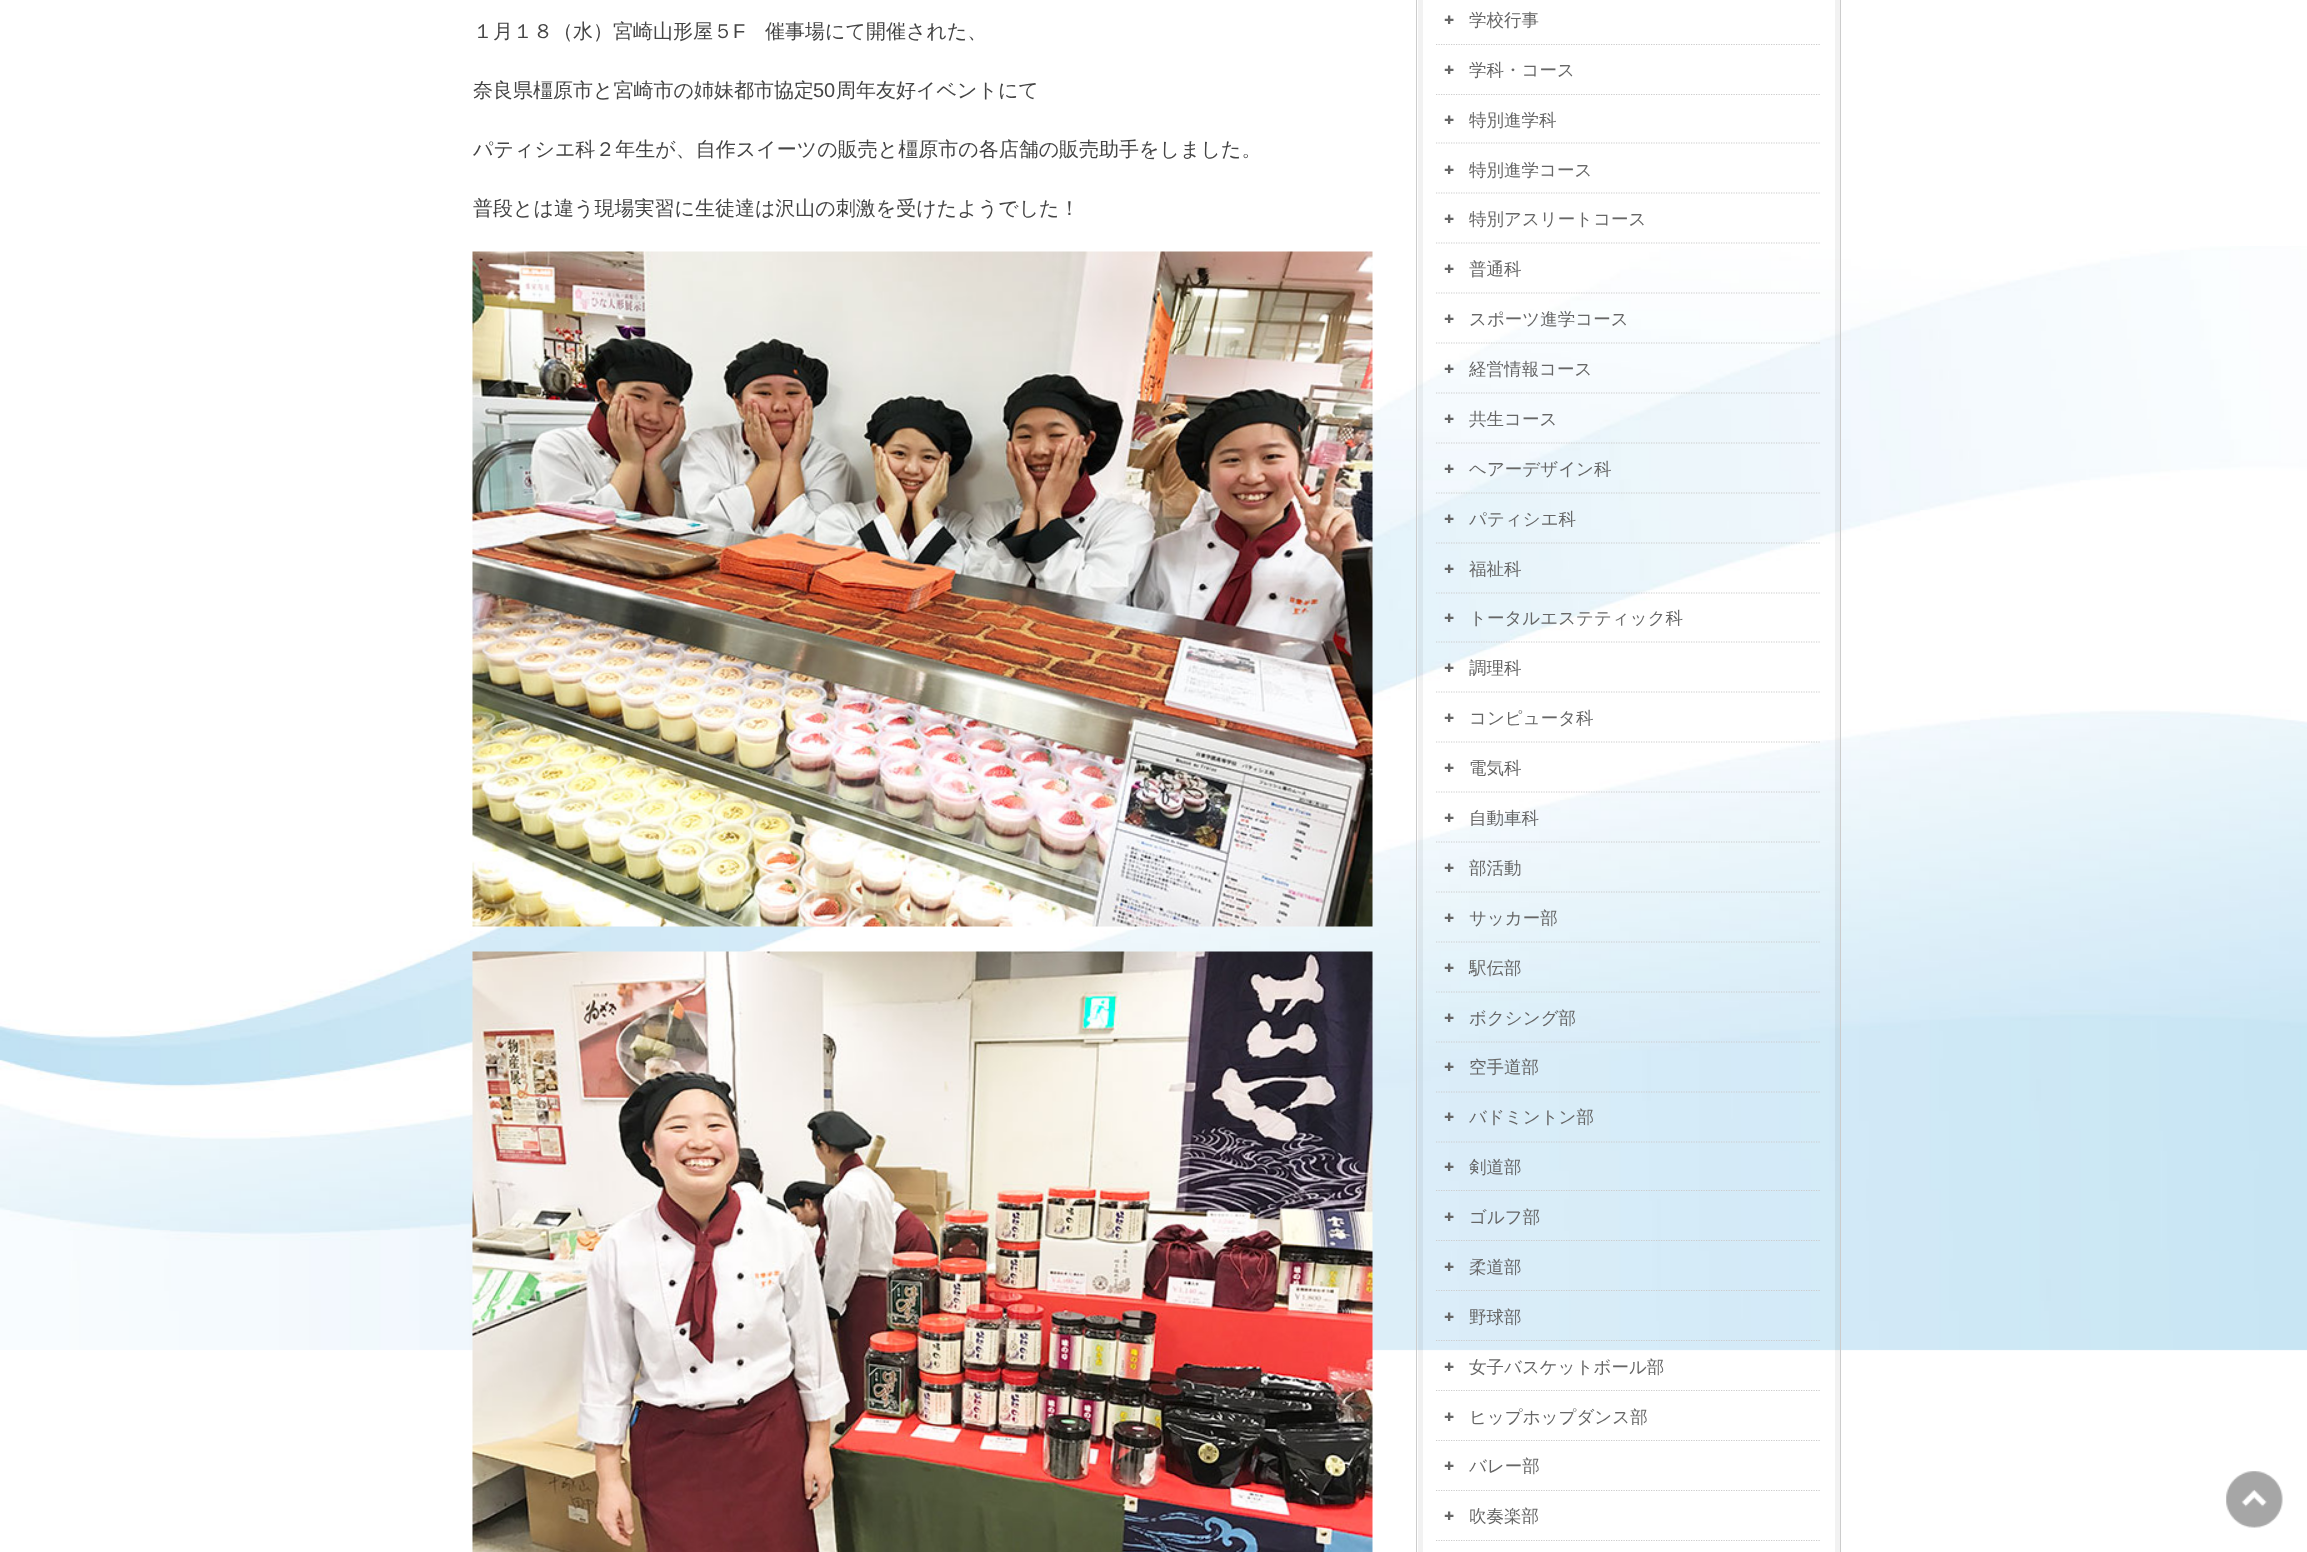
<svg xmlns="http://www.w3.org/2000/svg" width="2307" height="1552">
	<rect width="100%" height="100%" fill="#FFFFFF" />
	<image x="0" y="246" width="2307" height="1105" href="assets/img1.png" />
	<text x="473" y="38" font-family="WenQuanYi Zen Hei" font-size="20" font-weight="500" fill="#444444">１月１８（水）宮崎山形屋５</text>
	<text x="733" y="38" font-family="Liberation Sans" font-size="20" fill="#444444">F</text>
	<g font-family="WenQuanYi Zen Hei" font-size="20" font-weight="500" fill="#444444">
		<text x="765" y="38">催事場にて開催された、</text>
		<text x="473" y="97">奈良県橿原市と宮崎市の姉妹都市協定</text>
	</g>
	<text x="813" y="97" font-family="Liberation Sans" font-size="20" fill="#444444">50</text>
	<g font-family="WenQuanYi Zen Hei" font-size="20" font-weight="500" fill="#444444">
		<text x="836" y="97">周年友好イベントにて</text>
		<text x="473" y="156">パティシエ科２年生が、自作スイーツの販売と橿原市の各店舗の販売助手をしました。</text>
		<text x="473" y="215">普段とは違う現場実習に生徒達は沢山の刺激を受けたようでした！</text>
	</g>
	<image x="472" y="251" width="901" height="676" href="assets/img2.png" />
	<image x="472" y="951" width="901" height="601" href="assets/img3.png" />
	<rect x="1420.5" y="-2.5" width="417" height="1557" fill="none" stroke="#000000" stroke-opacity="0.05" stroke-width="5" />
	<rect x="1416.5" y="-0.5" width="424" height="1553" fill="none" stroke="#CCCCCC" />
	<text x="1444" y="26" font-family="Noto Sans" font-size="17.5" font-weight="900" fill="#666666">+</text>
	<text x="1469" y="26" font-family="WenQuanYi Zen Hei" font-size="17.5" font-weight="500" fill="#666666">学校行事</text>
	<path d="M1436 44.5H1821" fill="none" stroke="#CCCCCC" stroke-width="1.2" stroke-dasharray="1.25 1.25" />
	<text x="1444" y="76" font-family="Noto Sans" font-size="17.5" font-weight="900" fill="#666666">+</text>
	<text x="1469" y="76" font-family="WenQuanYi Zen Hei" font-size="17.5" font-weight="500" fill="#666666">学科・コース</text>
	<path d="M1436 94.5H1821" fill="none" stroke="#CCCCCC" stroke-width="1.2" stroke-dasharray="1.25 1.25" />
	<text x="1444" y="126" font-family="Noto Sans" font-size="17.5" font-weight="900" fill="#666666">+</text>
	<text x="1469" y="126" font-family="WenQuanYi Zen Hei" font-size="17.5" font-weight="500" fill="#666666">特別進学科</text>
	<path d="M1436 143H1821" fill="none" stroke="#CCCCCC" stroke-width="1.2" stroke-dasharray="1.25 1.25" />
	<text x="1444" y="176" font-family="Noto Sans" font-size="17.5" font-weight="900" fill="#666666">+</text>
	<text x="1469" y="176" font-family="WenQuanYi Zen Hei" font-size="17.5" font-weight="500" fill="#666666">特別進学コース</text>
	<path d="M1436 193H1821" fill="none" stroke="#CCCCCC" stroke-width="1.2" stroke-dasharray="1.25 1.25" />
	<text x="1444" y="225" font-family="Noto Sans" font-size="17.5" font-weight="900" fill="#666666">+</text>
	<text x="1469" y="225" font-family="WenQuanYi Zen Hei" font-size="17.5" font-weight="500" fill="#666666">特別アスリートコース</text>
	<path d="M1436 243H1821" fill="none" stroke="#CCCCCC" stroke-width="1.2" stroke-dasharray="1.25 1.25" />
	<text x="1444" y="275" font-family="Noto Sans" font-size="17.5" font-weight="900" fill="#666666">+</text>
	<text x="1469" y="275" font-family="WenQuanYi Zen Hei" font-size="17.5" font-weight="500" fill="#666666">普通科</text>
	<path d="M1436 293H1821" fill="none" stroke="#CCCCCC" stroke-width="1.2" stroke-dasharray="1.25 1.25" />
	<text x="1444" y="325" font-family="Noto Sans" font-size="17.5" font-weight="900" fill="#666666">+</text>
	<text x="1469" y="325" font-family="WenQuanYi Zen Hei" font-size="17.5" font-weight="500" fill="#666666">スポーツ進学コース</text>
	<path d="M1436 343H1821" fill="none" stroke="#CCCCCC" stroke-width="1.2" stroke-dasharray="1.25 1.25" />
	<text x="1444" y="375" font-family="Noto Sans" font-size="17.5" font-weight="900" fill="#666666">+</text>
	<text x="1469" y="375" font-family="WenQuanYi Zen Hei" font-size="17.5" font-weight="500" fill="#666666">経営情報コース</text>
	<path d="M1436 393H1821" fill="none" stroke="#CCCCCC" stroke-width="1.2" stroke-dasharray="1.25 1.25" />
	<text x="1444" y="425" font-family="Noto Sans" font-size="17.5" font-weight="900" fill="#666666">+</text>
	<text x="1469" y="425" font-family="WenQuanYi Zen Hei" font-size="17.5" font-weight="500" fill="#666666">共生コース</text>
	<path d="M1436 443H1821" fill="none" stroke="#CCCCCC" stroke-width="1.2" stroke-dasharray="1.25 1.25" />
	<text x="1444" y="475" font-family="Noto Sans" font-size="17.5" font-weight="900" fill="#666666">+</text>
	<text x="1469" y="475" font-family="WenQuanYi Zen Hei" font-size="17.5" font-weight="500" fill="#666666">ヘアーデザイン科</text>
	<path d="M1436 493H1821" fill="none" stroke="#CCCCCC" stroke-width="1.2" stroke-dasharray="1.25 1.25" />
	<text x="1444" y="525" font-family="Noto Sans" font-size="17.5" font-weight="900" fill="#666666">+</text>
	<text x="1469" y="525" font-family="WenQuanYi Zen Hei" font-size="17.5" font-weight="500" fill="#666666">パティシエ科</text>
	<path d="M1436 543H1821" fill="none" stroke="#CCCCCC" stroke-width="1.2" stroke-dasharray="1.25 1.25" />
	<text x="1444" y="575" font-family="Noto Sans" font-size="17.5" font-weight="900" fill="#666666">+</text>
	<text x="1469" y="575" font-family="WenQuanYi Zen Hei" font-size="17.5" font-weight="500" fill="#666666">福祉科</text>
	<path d="M1436 593H1821" fill="none" stroke="#CCCCCC" stroke-width="1.2" stroke-dasharray="1.25 1.25" />
	<text x="1444" y="624" font-family="Noto Sans" font-size="17.5" font-weight="900" fill="#666666">+</text>
	<text x="1469" y="624" font-family="WenQuanYi Zen Hei" font-size="17.5" font-weight="500" fill="#666666">トータルエステティック科</text>
	<path d="M1436 642H1821" fill="none" stroke="#CCCCCC" stroke-width="1.2" stroke-dasharray="1.25 1.25" />
	<text x="1444" y="674" font-family="Noto Sans" font-size="17.5" font-weight="900" fill="#666666">+</text>
	<text x="1469" y="674" font-family="WenQuanYi Zen Hei" font-size="17.5" font-weight="500" fill="#666666">調理科</text>
	<path d="M1436 692H1821" fill="none" stroke="#CCCCCC" stroke-width="1.2" stroke-dasharray="1.25 1.25" />
	<text x="1444" y="724" font-family="Noto Sans" font-size="17.5" font-weight="900" fill="#666666">+</text>
	<text x="1469" y="724" font-family="WenQuanYi Zen Hei" font-size="17.5" font-weight="500" fill="#666666">コンピュータ科</text>
	<path d="M1436 742H1821" fill="none" stroke="#CCCCCC" stroke-width="1.2" stroke-dasharray="1.25 1.25" />
	<text x="1444" y="774" font-family="Noto Sans" font-size="17.5" font-weight="900" fill="#666666">+</text>
	<text x="1469" y="774" font-family="WenQuanYi Zen Hei" font-size="17.5" font-weight="500" fill="#666666">電気科</text>
	<path d="M1436 792H1821" fill="none" stroke="#CCCCCC" stroke-width="1.2" stroke-dasharray="1.25 1.25" />
	<text x="1444" y="824" font-family="Noto Sans" font-size="17.5" font-weight="900" fill="#666666">+</text>
	<text x="1469" y="824" font-family="WenQuanYi Zen Hei" font-size="17.5" font-weight="500" fill="#666666">自動車科</text>
	<path d="M1436 842H1821" fill="none" stroke="#CCCCCC" stroke-width="1.2" stroke-dasharray="1.25 1.25" />
	<text x="1444" y="874" font-family="Noto Sans" font-size="17.5" font-weight="900" fill="#666666">+</text>
	<text x="1469" y="874" font-family="WenQuanYi Zen Hei" font-size="17.5" font-weight="500" fill="#666666">部活動</text>
	<path d="M1436 892H1821" fill="none" stroke="#CCCCCC" stroke-width="1.2" stroke-dasharray="1.25 1.25" />
	<text x="1444" y="924" font-family="Noto Sans" font-size="17.5" font-weight="900" fill="#666666">+</text>
	<text x="1469" y="924" font-family="WenQuanYi Zen Hei" font-size="17.5" font-weight="500" fill="#666666">サッカー部</text>
	<path d="M1436 942H1821" fill="none" stroke="#CCCCCC" stroke-width="1.2" stroke-dasharray="1.25 1.25" />
	<text x="1444" y="974" font-family="Noto Sans" font-size="17.5" font-weight="900" fill="#666666">+</text>
	<text x="1469" y="974" font-family="WenQuanYi Zen Hei" font-size="17.5" font-weight="500" fill="#666666">駅伝部</text>
	<path d="M1436 992H1821" fill="none" stroke="#CCCCCC" stroke-width="1.2" stroke-dasharray="1.25 1.25" />
	<text x="1444" y="1024" font-family="Noto Sans" font-size="17.5" font-weight="900" fill="#666666">+</text>
	<text x="1469" y="1024" font-family="WenQuanYi Zen Hei" font-size="17.5" font-weight="500" fill="#666666">ボクシング部</text>
	<path d="M1436 1042H1821" fill="none" stroke="#CCCCCC" stroke-width="1.2" stroke-dasharray="1.25 1.25" />
	<text x="1444" y="1073" font-family="Noto Sans" font-size="17.5" font-weight="900" fill="#666666">+</text>
	<text x="1469" y="1073" font-family="WenQuanYi Zen Hei" font-size="17.5" font-weight="500" fill="#666666">空手道部</text>
	<path d="M1436 1092H1821" fill="none" stroke="#CCCCCC" stroke-width="1.2" stroke-dasharray="1.25 1.25" />
	<text x="1444" y="1123" font-family="Noto Sans" font-size="17.5" font-weight="900" fill="#666666">+</text>
	<text x="1469" y="1123" font-family="WenQuanYi Zen Hei" font-size="17.5" font-weight="500" fill="#666666">バドミントン部</text>
	<path d="M1436 1142H1821" fill="none" stroke="#CCCCCC" stroke-width="1.2" stroke-dasharray="1.25 1.25" />
	<text x="1444" y="1173" font-family="Noto Sans" font-size="17.5" font-weight="900" fill="#666666">+</text>
	<text x="1469" y="1173" font-family="WenQuanYi Zen Hei" font-size="17.5" font-weight="500" fill="#666666">剣道部</text>
	<path d="M1436 1190.5H1821" fill="none" stroke="#CCCCCC" stroke-width="1.2" stroke-dasharray="1.25 1.25" />
	<text x="1444" y="1223" font-family="Noto Sans" font-size="17.5" font-weight="900" fill="#666666">+</text>
	<text x="1469" y="1223" font-family="WenQuanYi Zen Hei" font-size="17.5" font-weight="500" fill="#666666">ゴルフ部</text>
	<path d="M1436 1240.5H1821" fill="none" stroke="#CCCCCC" stroke-width="1.2" stroke-dasharray="1.25 1.25" />
	<text x="1444" y="1273" font-family="Noto Sans" font-size="17.5" font-weight="900" fill="#666666">+</text>
	<text x="1469" y="1273" font-family="WenQuanYi Zen Hei" font-size="17.5" font-weight="500" fill="#666666">柔道部</text>
	<path d="M1436 1290.5H1821" fill="none" stroke="#CCCCCC" stroke-width="1.2" stroke-dasharray="1.25 1.25" />
	<text x="1444" y="1323" font-family="Noto Sans" font-size="17.5" font-weight="900" fill="#666666">+</text>
	<text x="1469" y="1323" font-family="WenQuanYi Zen Hei" font-size="17.5" font-weight="500" fill="#666666">野球部</text>
	<path d="M1436 1340.5H1821" fill="none" stroke="#CCCCCC" stroke-width="1.2" stroke-dasharray="1.25 1.25" />
	<text x="1444" y="1373" font-family="Noto Sans" font-size="17.5" font-weight="900" fill="#666666">+</text>
	<text x="1469" y="1373" font-family="WenQuanYi Zen Hei" font-size="17.5" font-weight="500" fill="#666666">女子バスケットボール部</text>
	<path d="M1436 1390.5H1821" fill="none" stroke="#CCCCCC" stroke-width="1.2" stroke-dasharray="1.25 1.25" />
	<text x="1444" y="1423" font-family="Noto Sans" font-size="17.5" font-weight="900" fill="#666666">+</text>
	<text x="1469" y="1423" font-family="WenQuanYi Zen Hei" font-size="17.5" font-weight="500" fill="#666666">ヒップホップダンス部</text>
	<path d="M1436 1440.5H1821" fill="none" stroke="#CCCCCC" stroke-width="1.2" stroke-dasharray="1.25 1.25" />
	<text x="1444" y="1472" font-family="Noto Sans" font-size="17.5" font-weight="900" fill="#666666">+</text>
	<text x="1469" y="1472" font-family="WenQuanYi Zen Hei" font-size="17.5" font-weight="500" fill="#666666">バレー部</text>
	<path d="M1436 1490.5H1821" fill="none" stroke="#CCCCCC" stroke-width="1.2" stroke-dasharray="1.25 1.25" />
	<text x="1444" y="1522" font-family="Noto Sans" font-size="17.5" font-weight="900" fill="#666666">+</text>
	<text x="1469" y="1522" font-family="WenQuanYi Zen Hei" font-size="17.5" font-weight="500" fill="#666666">吹奏楽部</text>
	<path d="M1436 1540.5H1821" fill="none" stroke="#CCCCCC" stroke-width="1.2" stroke-dasharray="1.25 1.25" />
	<image x="2226" y="1471" width="57" height="57" href="assets/img4.png" />
</svg>
